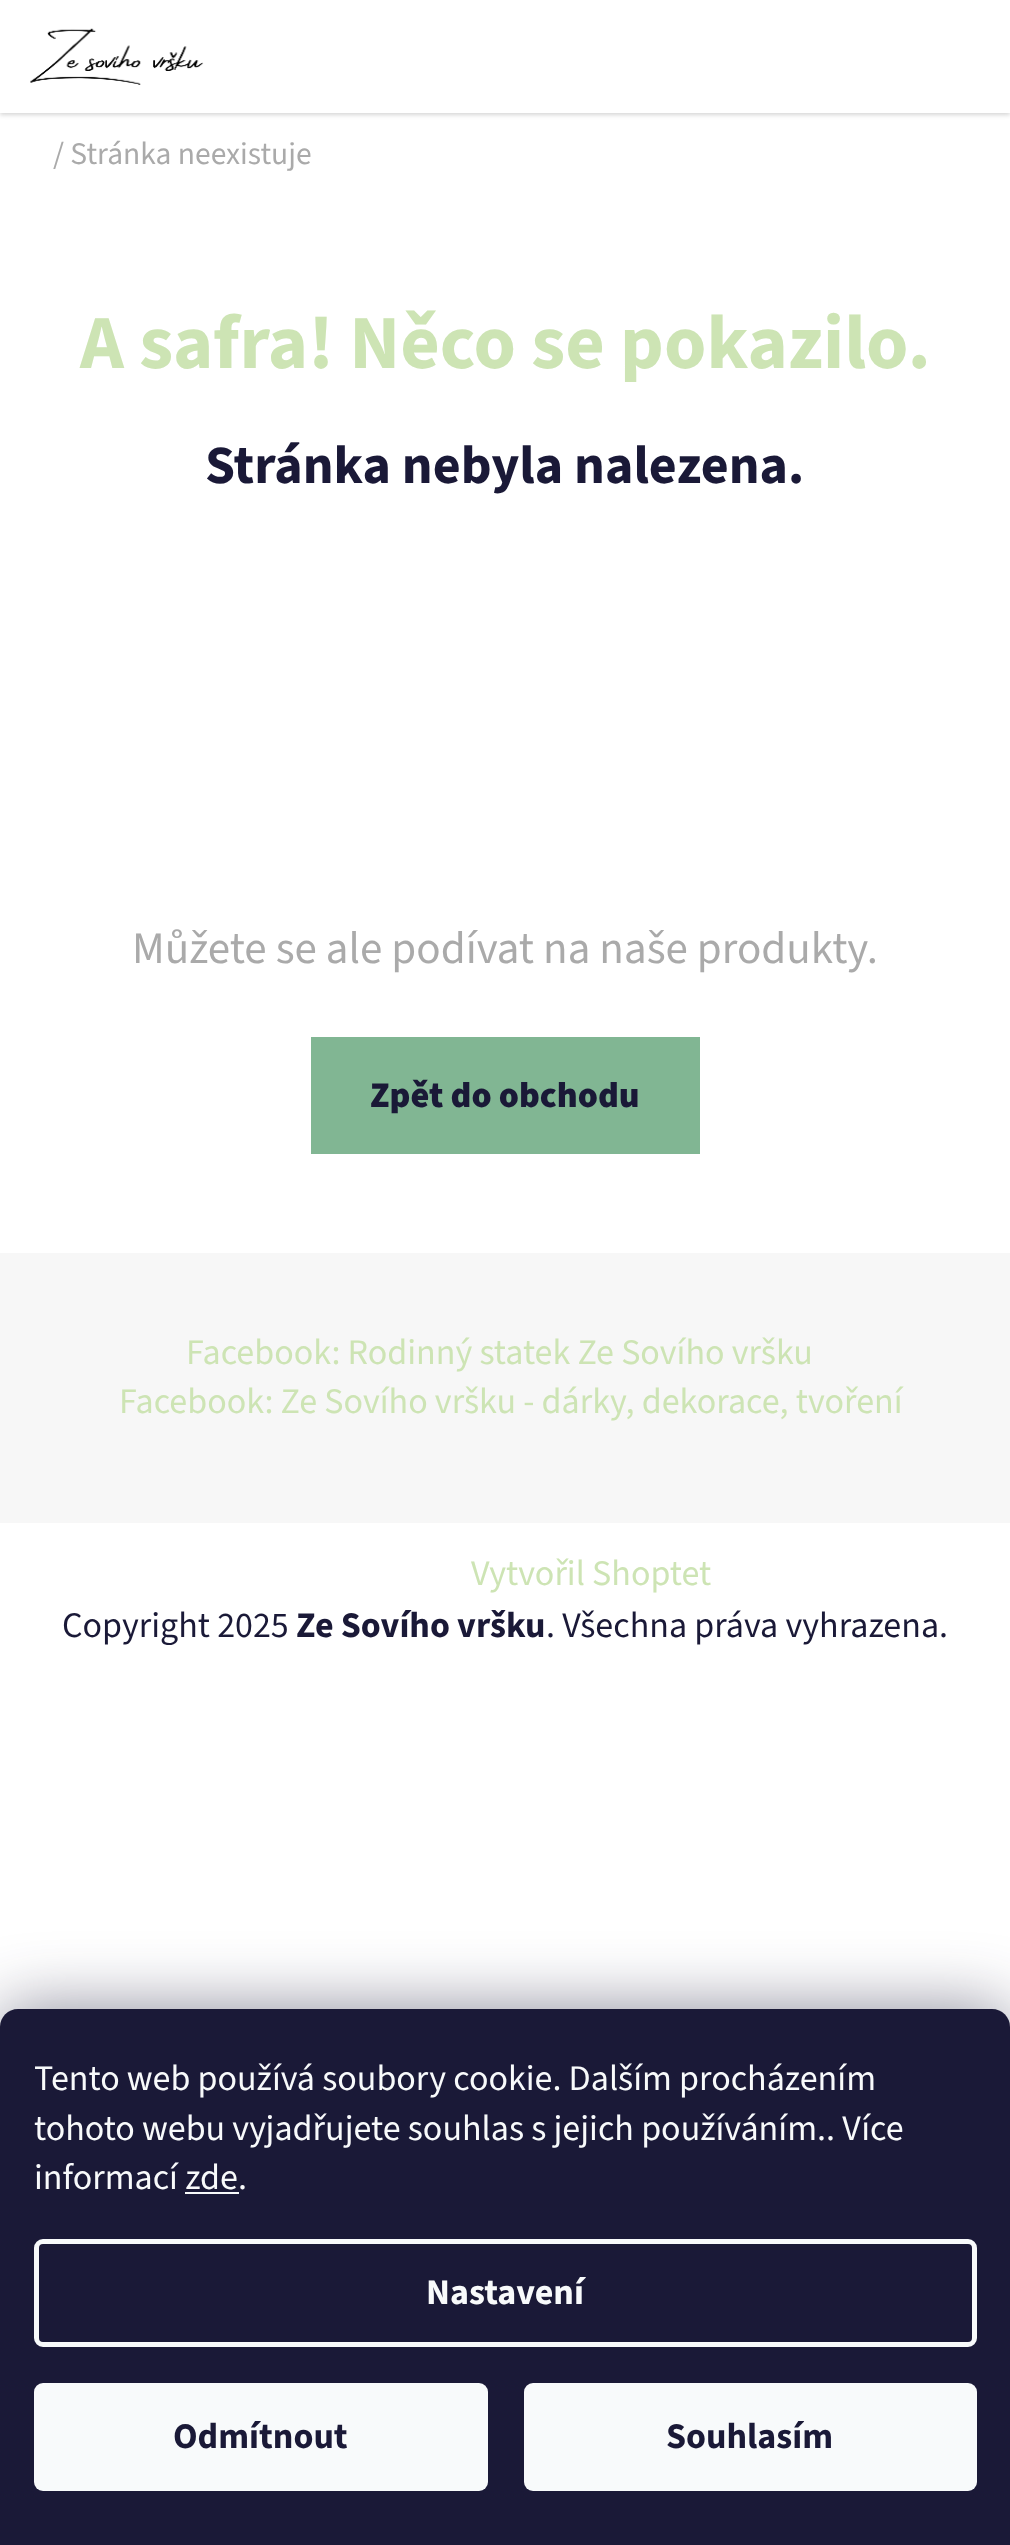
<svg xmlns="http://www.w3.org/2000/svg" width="1010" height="2545">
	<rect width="100%" height="100%" fill="#FFFFFF" />
	<rect x="0" y="2" width="1010" height="113" fill="#000000" fill-opacity="0.16" filter="blur(2px)" />
	<rect x="0" y="0" width="1010" height="113" fill="#FFFFFF" />
	<image x="30" y="28" width="174" height="57" href="assets/img1.png" />
	<text x="53" y="164" font-family="'Source Sans 3'" font-size="31.5" fill="#AAAAAA">/ Stránka neexistuje</text>
	<text x="80" y="368" font-family="'Source Sans 3'" font-size="76.5" font-weight="700" fill="#CDE4B4">A safra! Něco se pokazilo.</text>
	<text x="205" y="483" font-family="'Source Sans 3'" font-size="54" font-weight="700" fill="#1A1937">Stránka nebyla nalezena.</text>
	<text x="132" y="963" font-family="'Source Sans 3'" font-size="45" fill="#AAAAAA">Můžete se ale podívat na naše produkty.</text>
	<rect x="311" y="1037" width="389" height="117" fill="#81B693" />
	<text x="370" y="1107" font-family="'Source Sans 3'" font-size="36" font-weight="900" fill="#1A1937">Zpět do obchodu</text>
	<rect x="0" y="1253" width="1010" height="270" fill="#F7F7F7" />
	<g font-family="'Source Sans 3'" font-size="36" fill="#CDE4B4">
		<text x="186" y="1364">Facebook: Rodinný statek Ze Sovího vršku</text>
		<text x="119" y="1413">Facebook: Ze Sovího vršku - dárky, dekorace, tvoření</text>
		<text x="471" y="1585">Vytvořil Shoptet</text>
	</g>
	<text x="62" y="1637" font-family="'Source Sans 3'" font-size="36" fill="#1A1937">Copyright 2025</text>
	<text x="296" y="1637" font-family="'Source Sans 3'" font-size="36" font-weight="700" fill="#1A1937">Ze Sovího vršku</text>
	<text x="546" y="1637" font-family="'Source Sans 3'" font-size="36" fill="#1A1937">. Všechna práva vyhrazena.</text>
	<rect x="0" y="2009" width="1010" height="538" rx="18" fill="#1B1939" fill-opacity="0.5" filter="blur(34px)" />
	<path d="M18 2009H992C1002 2009 1010 2017 1010 2027V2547H0V2027C0 2017 8 2009 18 2009Z" fill="#1A1937" />
	<g font-family="'Source Sans 3'" font-size="36" fill="#F8FAFB">
		<text x="34" y="2090">Tento web používá soubory cookie. Dalším procházením</text>
		<text x="34" y="2140">tohoto webu vyjadřujete souhlas s jejich používáním.. Více</text>
		<text x="34" y="2189">informací zde.</text>
	</g>
	<rect x="185" y="2192" width="54" height="2" fill="#F8FAFB" />
	<rect x="36.5" y="2241.5" width="938" height="103" rx="6.5" fill="none" stroke="#F8FAFB" stroke-width="5" />
	<text x="426" y="2304" font-family="'Source Sans 3'" font-size="36" font-weight="700" fill="#F8FAFB">Nastavení</text>
	<rect x="34" y="2383" width="454" height="108" rx="9" fill="#F8FAFB" />
	<text x="173" y="2448" font-family="'Source Sans 3'" font-size="36" font-weight="700" fill="#1A1937">Odmítnout</text>
	<rect x="524" y="2383" width="453" height="108" rx="9" fill="#F8FAFB" />
	<text x="666" y="2448" font-family="'Source Sans 3'" font-size="36" font-weight="700" fill="#1A1937">Souhlasím</text>
</svg>
